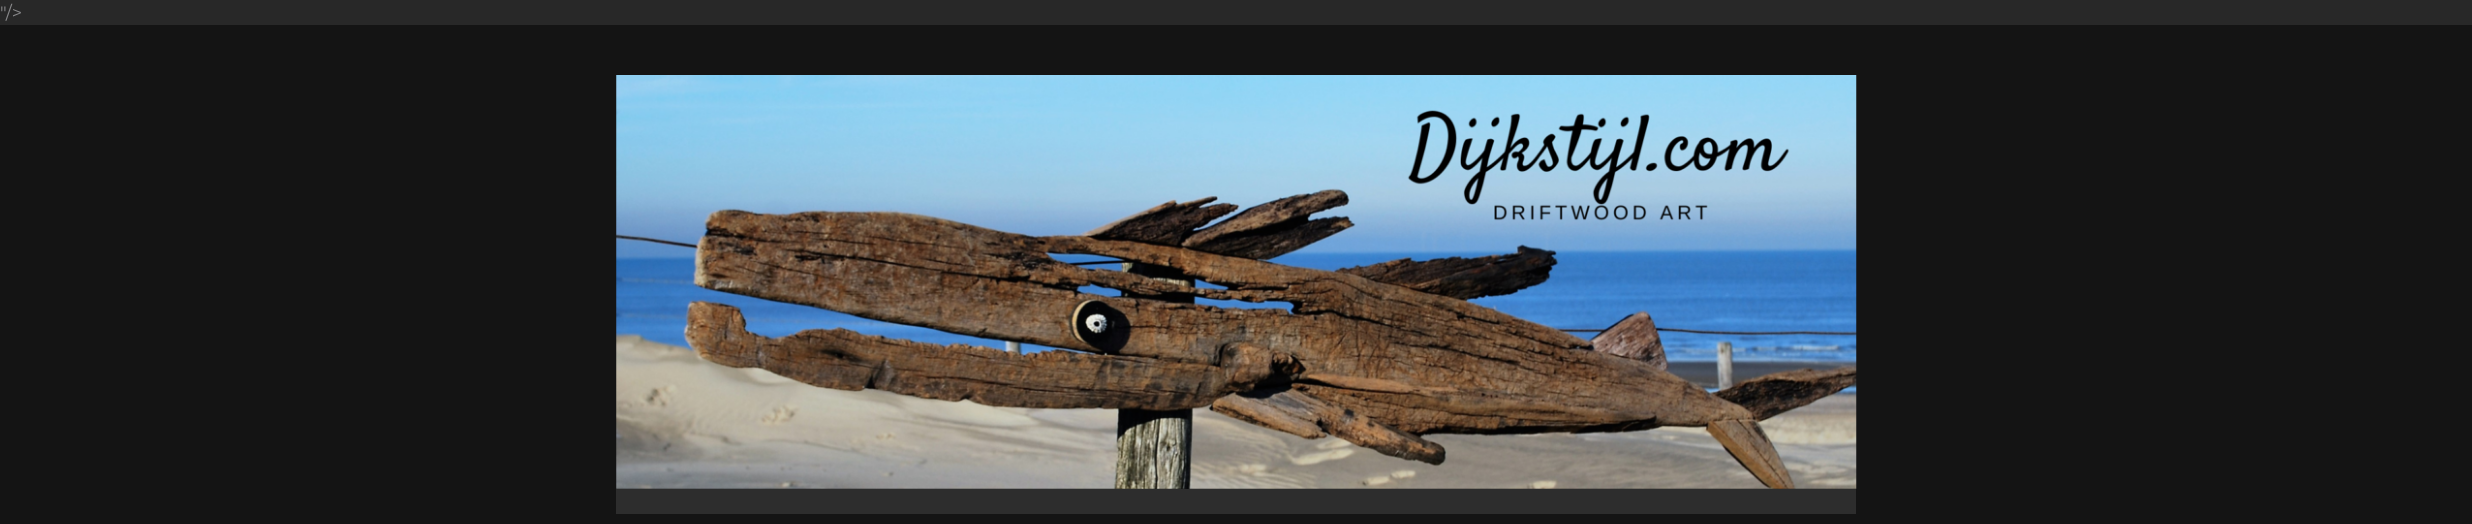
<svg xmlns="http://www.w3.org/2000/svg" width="2472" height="524">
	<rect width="100%" height="100%" fill="#282828" />
	<text x="0" y="19" font-family="Montserrat" font-size="18" font-weight="100" fill="#89898B">"/&gt;</text>
	<rect x="0" y="25" width="2472" height="499" fill="#141414" />
	<image x="616" y="75" width="1241" height="414" href="assets/img1.png" />
	<rect x="616" y="489" width="1240" height="25" fill="#2D2D2D" />
</svg>
